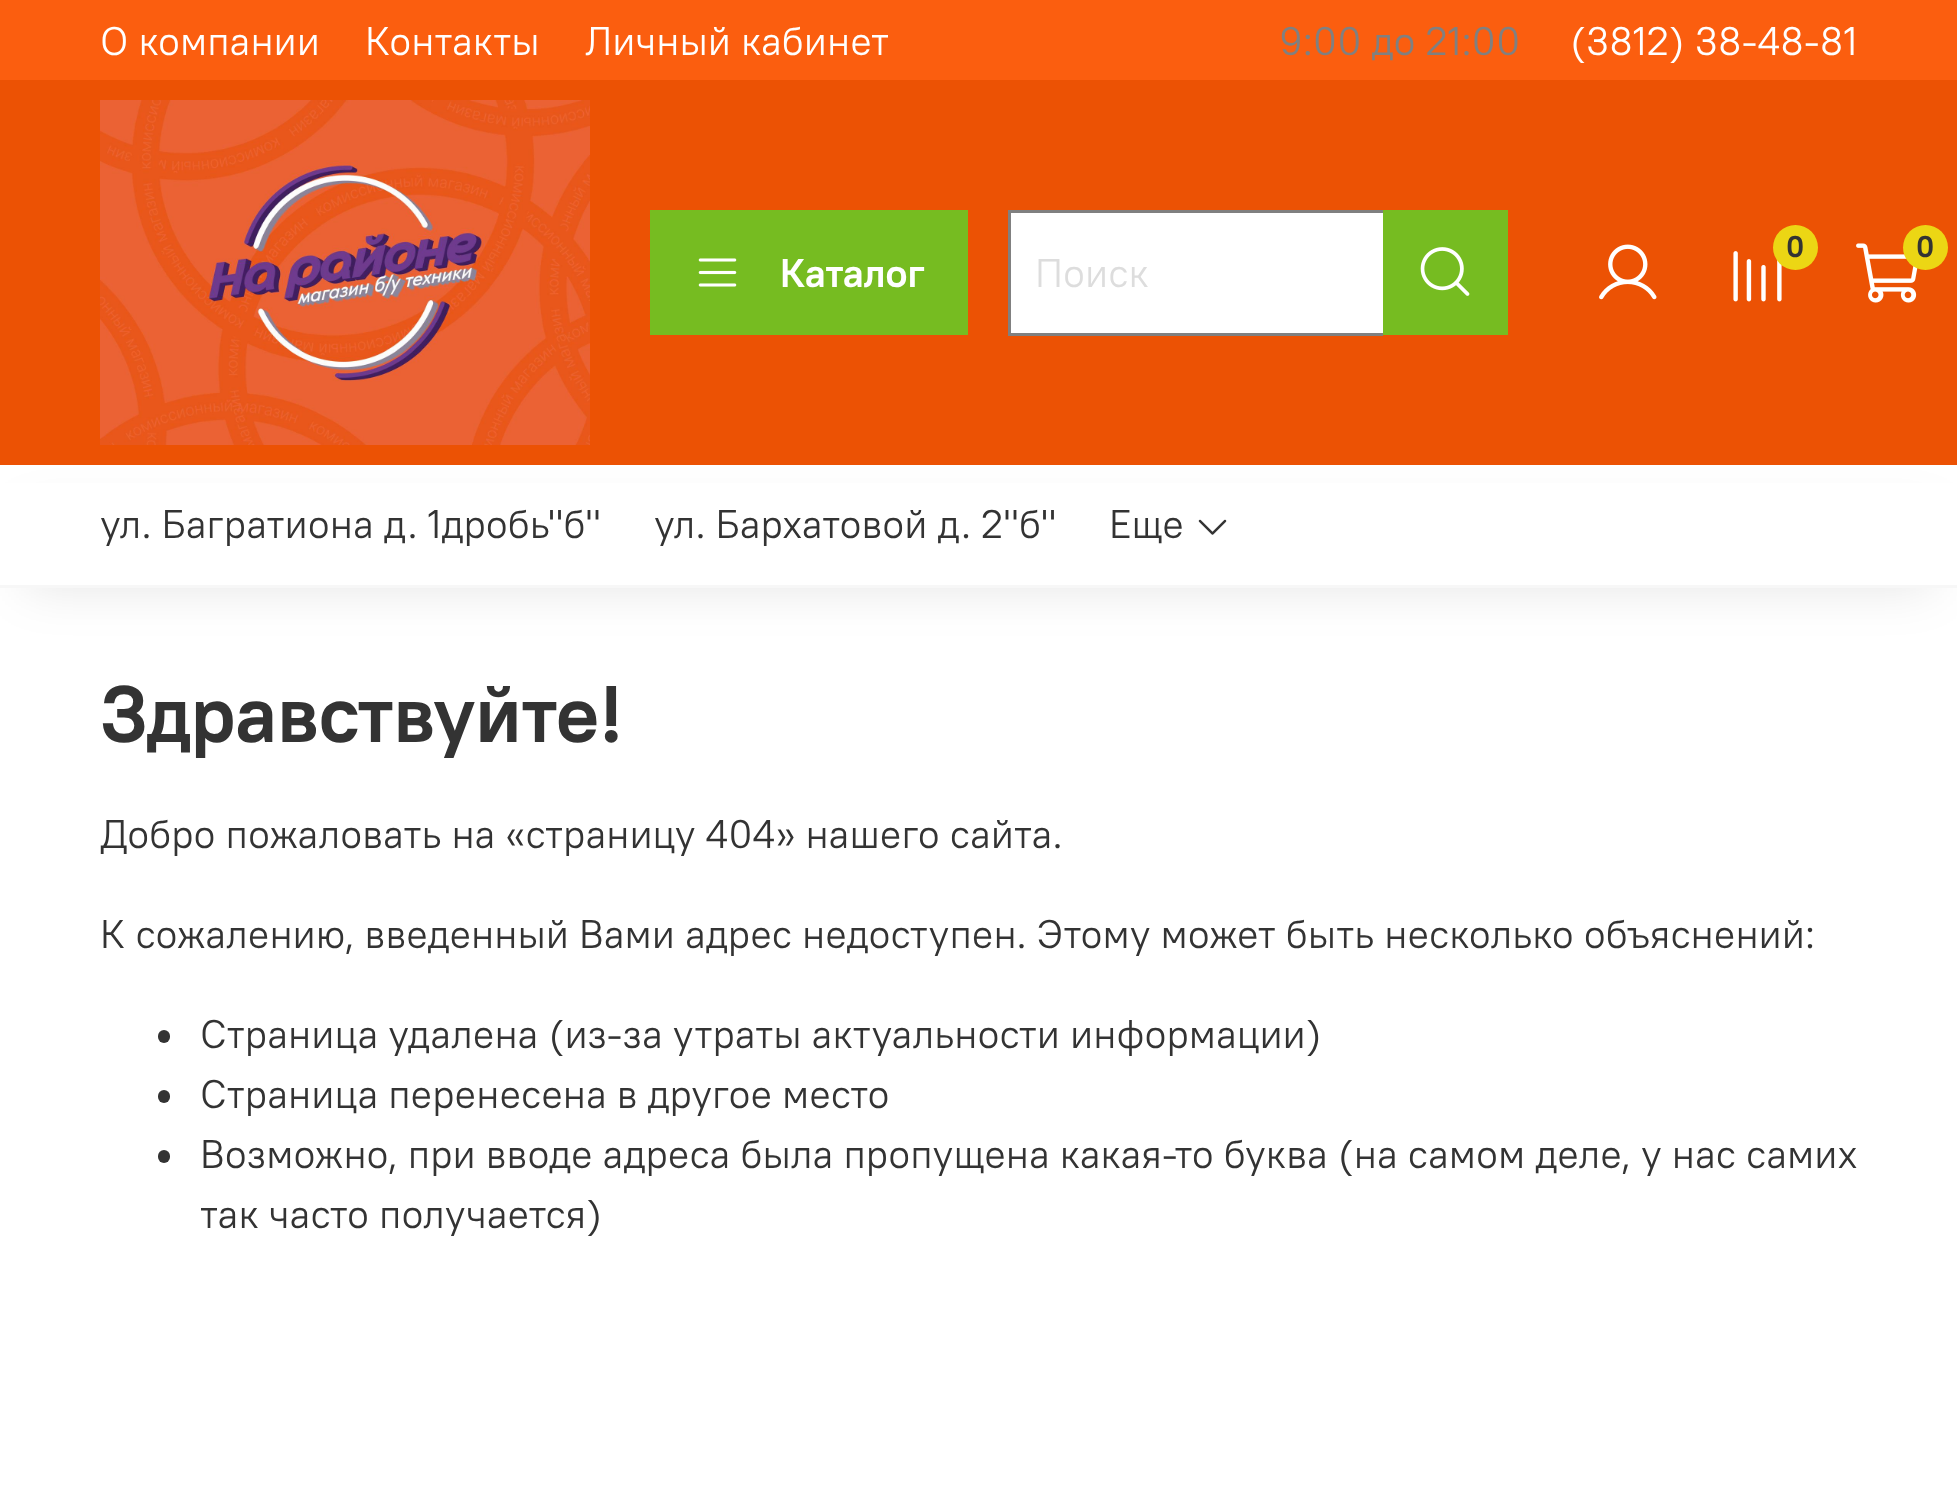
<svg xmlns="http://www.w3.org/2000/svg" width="1957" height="1497">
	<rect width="100%" height="100%" fill="#FFFFFF" />
	<rect x="0" y="0" width="1957" height="80" fill="#FB5E0F" />
	<g font-family="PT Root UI" font-size="40" fill="#FFFFFF">
		<text x="100" y="55">О компании</text>
		<text x="365" y="55">Контакты</text>
		<text x="585" y="55">Личный кабинет</text>
	</g>
	<text x="1279" y="55" font-family="PT Root UI" font-size="40" fill="#808080">9:00 до 21:00</text>
	<text x="1570" y="55" font-family="PT Root UI" font-size="40" fill="#FFFFFF">(3812) 38-48-81</text>
	<rect x="0" y="80" width="1957" height="385" fill="#EC5204" />
	<image x="100" y="100" width="490" height="345" href="assets/img1.png" />
	<image x="1599" y="244" width="58" height="56" href="assets/img2.png" />
	<image x="1733" y="251" width="49" height="51" href="assets/img3.png" />
	<circle cx="1795.5" cy="247.5" r="22.5" fill="#ECD614" />
	<text x="1786" y="257" font-family="PT Root UI" font-size="30" font-weight="700" fill="#333333">0</text>
	<image x="1856" y="243" width="62" height="60" href="assets/img4.png" />
	<circle cx="1925.5" cy="247.5" r="22.5" fill="#ECD614" />
	<text x="1916" y="257" font-family="PT Root UI" font-size="30" font-weight="700" fill="#333333">0</text>
	<rect x="650" y="210" width="318" height="125" fill="#76BC21" />
	<image x="698" y="258" width="39" height="29" href="assets/img5.png" />
	<text x="780" y="287" font-family="PT Root UI" font-size="40" font-weight="700" fill="#FFFFFF">Каталог</text>
	<rect x="1011" y="213" width="372" height="120" fill="#FFFFFF" />
	<rect x="1008" y="210" width="375" height="3" fill="#808080" />
	<rect x="1008" y="333" width="375" height="3" fill="#808080" />
	<rect x="1008" y="210" width="3" height="125" fill="#808080" />
	<text x="1035" y="287" font-family="PT Root UI" font-size="40" fill="#DDDDDD">Поиск</text>
	<rect x="1383" y="210" width="125" height="125" fill="#76BC21" />
	<image x="1420" y="247" width="50" height="49" href="assets/img6.png" />
	<rect x="25" y="515" width="1908" height="73" fill="#000000" fill-opacity="0.1" filter="blur(25px)" />
	<rect x="0" y="483" width="1957" height="102" fill="#FFFFFF" />
	<rect x="0" y="585" width="1957" height="3" fill="#F7F7F7" />
	<g font-family="PT Root UI" font-size="40" fill="#333333">
		<text x="100" y="538">ул. Багратиона д. 1дробь"б"</text>
		<text x="654" y="538">ул. Бархатовой д. 2"б"</text>
		<text x="1109" y="538">Еще</text>
	</g>
	<image x="1198" y="519" width="29" height="16" href="assets/img7.png" />
	<text x="100" y="742" font-family="PT Root UI" font-size="80" font-weight="700" fill="#333333">Здравствуйте!</text>
	<g font-family="PT Root UI" font-size="40" fill="#333333">
		<text x="100" y="848">Добро пожаловать на «страницу 404» нашего сайта.</text>
		<text x="100" y="948">К сожалению, введенный Вами адрес недоступен. Этому может быть несколько объяснений:</text>
	</g>
	<rect x="158" y="1030" width="12" height="13" rx="6" fill="#333333" />
	<text x="200" y="1048" font-family="PT Root UI" font-size="40" fill="#333333">Страница удалена (из-за утраты актуальности информации)</text>
	<rect x="158" y="1090" width="12" height="13" rx="6" fill="#333333" />
	<text x="200" y="1108" font-family="PT Root UI" font-size="40" fill="#333333">Страница перенесена в другое место</text>
	<rect x="158" y="1150" width="12" height="13" rx="6" fill="#333333" />
	<g font-family="PT Root UI" font-size="40" fill="#333333">
		<text x="200" y="1168">Возможно, при вводе адреса была пропущена какая-то буква (на самом деле, у нас самих</text>
		<text x="200" y="1228">так часто получается)</text>
	</g>
</svg>
